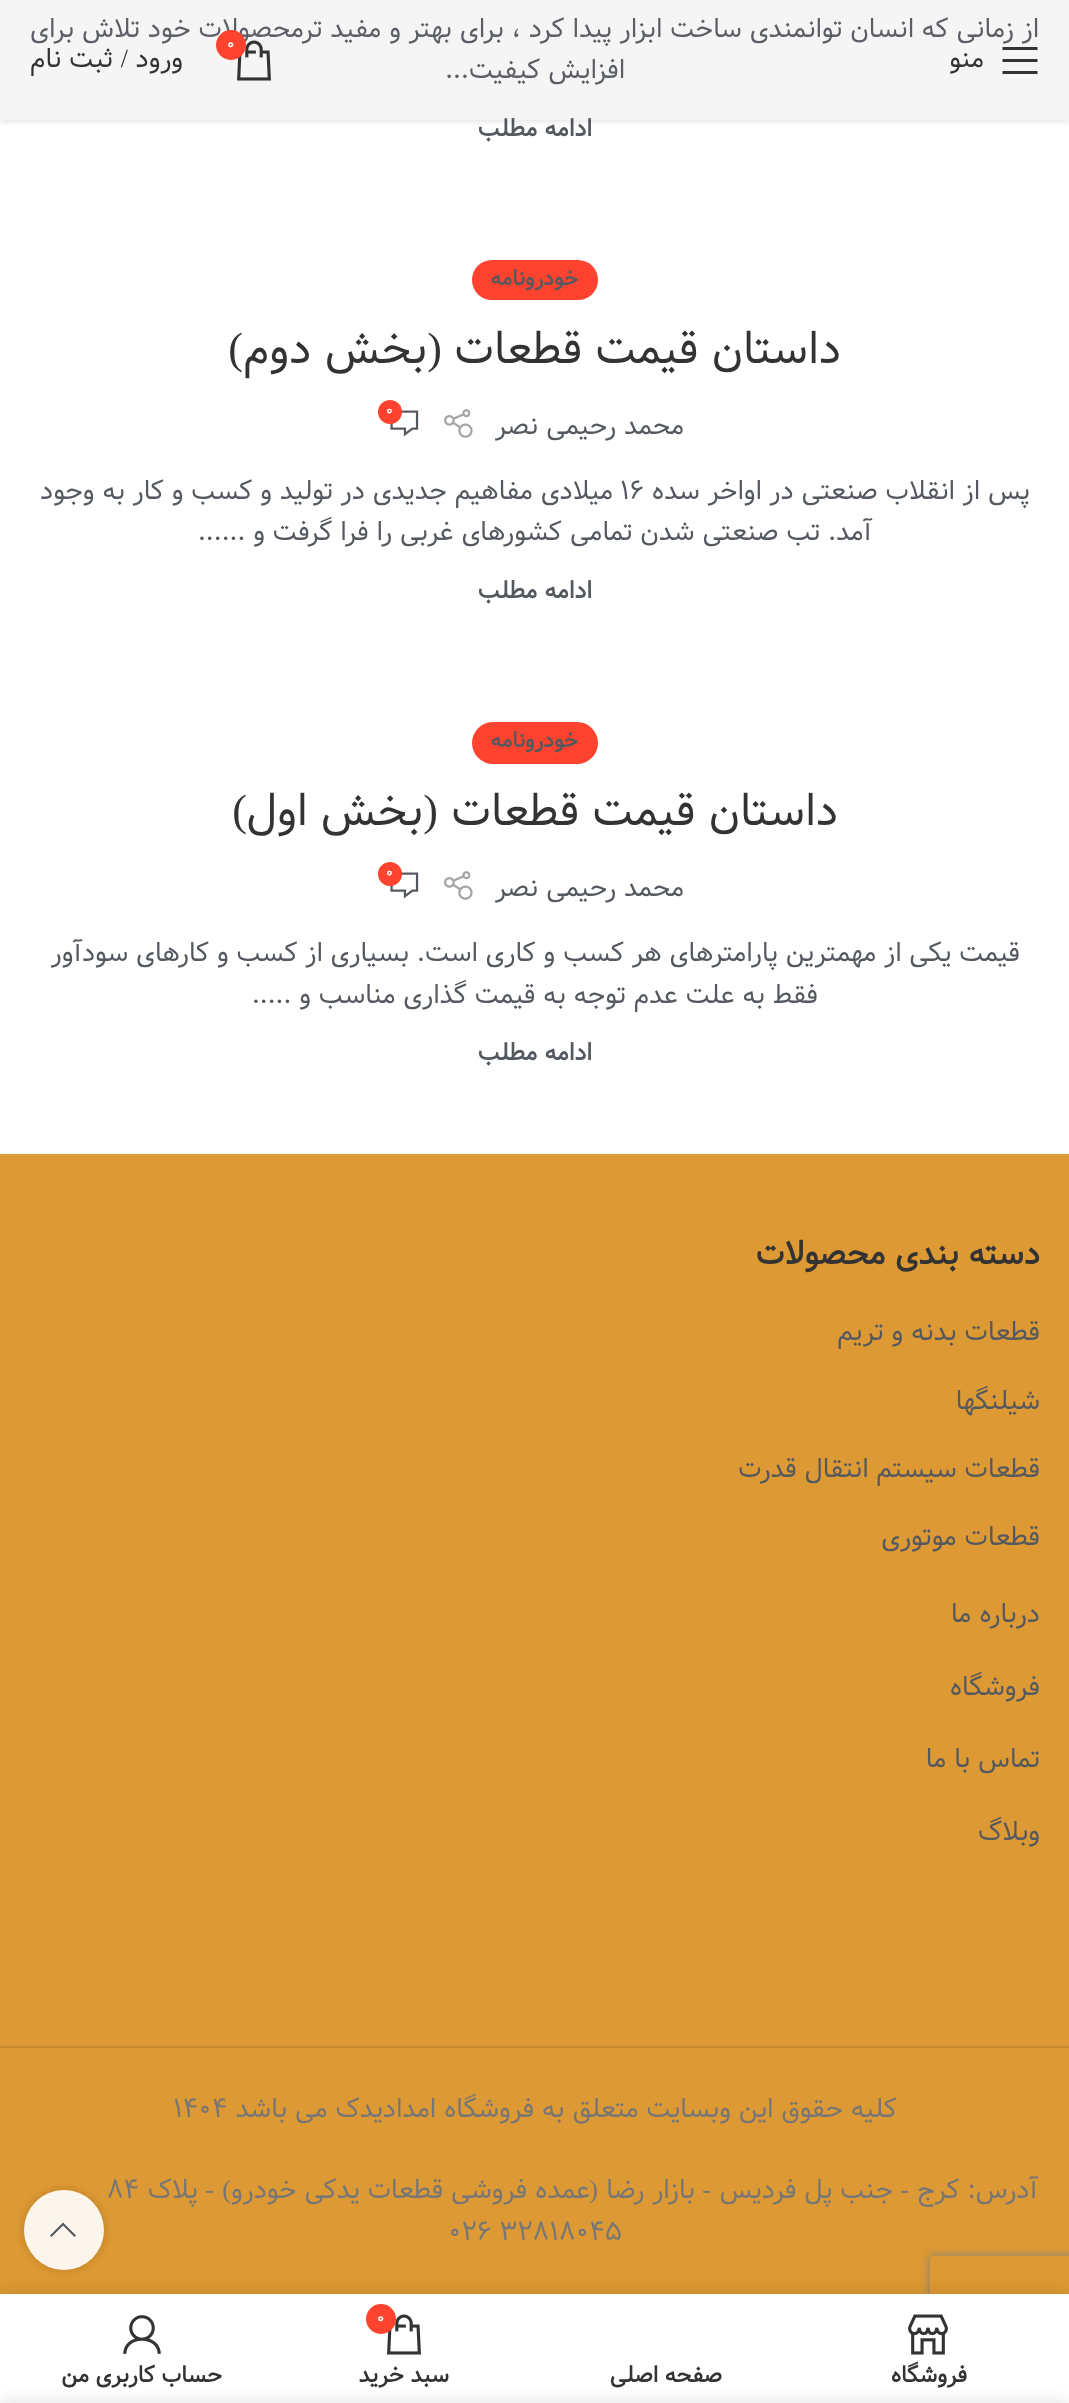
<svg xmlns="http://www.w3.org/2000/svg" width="1069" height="2403">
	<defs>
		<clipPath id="clip1"><rect x="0" y="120" width="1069" height="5" /></clipPath>
		<clipPath id="clip2"><path d="M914 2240H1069V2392H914ZM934 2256H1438C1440 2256 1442 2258 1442 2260V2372C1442 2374 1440 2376 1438 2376H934C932 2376 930 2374 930 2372V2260C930 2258 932 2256 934 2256Z" clip-rule="evenodd" /></clipPath>
		<clipPath id="clip3"><path d="M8 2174H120V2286H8ZM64 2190C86 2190 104 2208 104 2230C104 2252 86 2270 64 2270C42 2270 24 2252 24 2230C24 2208 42 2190 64 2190Z" clip-rule="evenodd" /></clipPath>
	</defs>
	<rect width="100%" height="100%" fill="#FFFFFF" />
	<g font-family="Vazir" font-size="26" direction="rtl" fill="#54595F">
		<text x="1039" y="37">از زمانی که انسان توانمندی ساخت ابزار پیدا کرد ، برای بهتر و مفید ترمحصولات خود تلاش برای</text>
		<text x="625" y="78">افزایش کیفیت...</text>
	</g>
	<text x="592" y="136" font-family="Vazir" font-size="23.5" font-weight="700" direction="rtl" fill="#54595F">ادامه مطلب</text>
	<rect x="472" y="260" width="126" height="40" rx="20" fill="#FF432E" />
	<text x="578" y="285" font-family="Vazir" font-size="21" font-weight="700" direction="rtl" fill="#54595F">خودرونامه</text>
	<text x="841" y="363" font-family="Vazir" font-size="44" direction="rtl" fill="#333333">داستان قیمت قطعات</text>
	<text x="442" y="363" font-family="Liberation Serif" font-size="44" direction="rtl" fill="#333333">(</text>
	<text x="427" y="363" font-family="Vazir" font-size="44" direction="rtl" fill="#333333">بخش دوم</text>
	<text x="243" y="363" font-family="Liberation Serif" font-size="44" direction="rtl" fill="#333333">)</text>
	<text x="684" y="434" font-family="Vazir" font-size="26" direction="rtl" fill="#54595F">محمد رحیمی نصر</text>
	<image x="444" y="409" width="29" height="29" href="assets/img1.png" />
	<image x="390" y="410" width="29" height="27" href="assets/img2.png" />
	<circle cx="390" cy="412" r="12" fill="#FF432E" />
	<text x="385" y="416" font-family="Vazir" font-size="17" fill="#FFFFFF">0</text>
	<text x="1030" y="499" font-family="Vazir" font-size="26" direction="rtl" fill="#54595F">پس از انقلاب صنعتی در اواخر سده</text>
	<text x="620" y="499" font-family="Vazir" font-size="26" fill="#54595F">16</text>
	<g font-family="Vazir" font-size="26" direction="rtl" fill="#54595F">
		<text x="613" y="499">میلادی مفاهیم جدیدی در تولید و کسب و کار به وجود</text>
		<text x="872" y="540">آمد. تب صنعتی شدن تمامی کشورهای غربی را فرا گرفت و ......</text>
	</g>
	<text x="592" y="598" font-family="Vazir" font-size="23.5" font-weight="700" direction="rtl" fill="#54595F">ادامه مطلب</text>
	<rect x="472" y="722" width="126" height="42" rx="21" fill="#FF432E" />
	<text x="578" y="747" font-family="Vazir" font-size="21" font-weight="700" direction="rtl" fill="#54595F">خودرونامه</text>
	<text x="838" y="825" font-family="Vazir" font-size="44" direction="rtl" fill="#333333">داستان قیمت قطعات</text>
	<text x="438" y="825" font-family="Liberation Serif" font-size="44" direction="rtl" fill="#333333">(</text>
	<text x="423" y="825" font-family="Vazir" font-size="44" direction="rtl" fill="#333333">بخش اول</text>
	<text x="247" y="825" font-family="Liberation Serif" font-size="44" direction="rtl" fill="#333333">)</text>
	<text x="684" y="896" font-family="Vazir" font-size="26" direction="rtl" fill="#54595F">محمد رحیمی نصر</text>
	<image x="444" y="871" width="29" height="29" href="assets/img1.png" />
	<image x="390" y="872" width="29" height="27" href="assets/img2.png" />
	<circle cx="390" cy="874" r="12" fill="#FF432E" />
	<text x="385" y="878" font-family="Vazir" font-size="17" fill="#FFFFFF">0</text>
	<g font-family="Vazir" font-size="26" direction="rtl" fill="#54595F">
		<text x="1020" y="961">قیمت یکی از مهمترین پارامترهای هر کسب و کاری است. بسیاری از کسب و کارهای سودآور</text>
		<text x="818" y="1003">فقط به علت عدم توجه به قیمت گذاری مناسب و .....</text>
	</g>
	<text x="592" y="1060" font-family="Vazir" font-size="23.5" font-weight="700" direction="rtl" fill="#54595F">ادامه مطلب</text>
	<g clip-path="url(#clip1)">
		<rect x="0" y="2" width="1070" height="120" fill="#000000" fill-opacity="0.1" filter="blur(3px)" />
	</g>
	<rect x="0" y="0" width="1069" height="120" fill="#9B9B9B" fill-opacity="0.1" />
	<path d="M1002.5 50H1037.5V47H1002.5ZM1002.5 62H1037.5V59H1002.5ZM1002.5 74H1037.5V71H1002.5Z" fill="#333333" />
	<text x="984" y="67" font-family="Vazir" font-size="26" direction="rtl" fill="#333333">منو</text>
	<image x="237" y="40" width="34" height="41" href="assets/img3.png" />
	<circle cx="231" cy="45" r="15" fill="#FF432E" />
	<text x="226" y="50" font-family="Vazir" font-size="18" fill="#FFFFFF">0</text>
	<text x="183" y="67" font-family="Vazir" font-size="26" direction="rtl" fill="#333333">ورود</text>
	<text x="128" y="67" font-family="Liberation Serif" font-size="26" direction="rtl" fill="#333333">/</text>
	<text x="113" y="67" font-family="Vazir" font-size="26" direction="rtl" fill="#333333">ثبت نام</text>
	<rect x="0" y="1154" width="1069" height="1140" fill="#DD9933" />
	<text x="1040" y="1264" font-family="Vazir" font-size="32" font-weight="700" direction="rtl" fill="#333333">دسته بندی محصولات</text>
	<g font-family="Vazir" font-size="26" direction="rtl" fill="#54595F">
		<text x="1040" y="1340">قطعات بدنه و تریم</text>
		<text x="1040" y="1409">شیلنگها</text>
		<text x="1040" y="1477">قطعات سیستم انتقال قدرت</text>
		<text x="1040" y="1545">قطعات موتوری</text>
		<text x="1040" y="1622">درباره ما</text>
		<text x="1040" y="1695">فروشگاه</text>
		<text x="1040" y="1767">تماس با ما</text>
		<text x="1040" y="1840">وبلاگ</text>
	</g>
	<rect x="0" y="2046" width="1069" height="2" fill="#C6892E" />
	<text x="897" y="2117" font-family="Vazir" font-size="26" direction="rtl" fill="#767676">کلیه حقوق این وبسایت متعلق به فروشگاه امدادیدک می باشد</text>
	<text x="173" y="2117" font-family="Vazir" font-size="26" fill="#767676">1404</text>
	<text x="1038" y="2198" font-family="Vazir" font-size="26" direction="rtl" fill="#767676">آدرس: کرج</text>
	<text x="909" y="2198" font-family="Liberation Serif" font-size="26" direction="rtl" fill="#767676">-</text>
	<text x="893" y="2198" font-family="Vazir" font-size="26" direction="rtl" fill="#767676">جنب پل فردیس</text>
	<text x="711" y="2198" font-family="Liberation Serif" font-size="26" direction="rtl" fill="#767676">-</text>
	<text x="695" y="2198" font-family="Vazir" font-size="26" direction="rtl" fill="#767676">بازار رضا</text>
	<text x="598" y="2198" font-family="Liberation Serif" font-size="26" direction="rtl" fill="#767676">(</text>
	<text x="590" y="2198" font-family="Vazir" font-size="26" direction="rtl" fill="#767676">عمده فروشی قطعات یدکی خودرو</text>
	<g font-family="Liberation Serif" font-size="26" direction="rtl" fill="#767676">
		<text x="231" y="2198">)</text>
		<text x="214" y="2198">-</text>
	</g>
	<text x="198" y="2198" font-family="Vazir" font-size="26" direction="rtl" fill="#767676">پلاک</text>
	<g font-family="Vazir" font-size="26" fill="#767676">
		<text x="107" y="2198">84</text>
		<text x="448" y="2240">026 32818045</text>
	</g>
	<g clip-path="url(#clip2)">
		<rect x="930" y="2256" width="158" height="120" rx="4" fill="#808080" filter="blur(5px)" />
	</g>
	<g clip-path="url(#clip3)">
		<rect x="24" y="2190" width="80" height="80" rx="40" fill="#000000" fill-opacity="0.17" filter="blur(5px)" />
	</g>
	<circle cx="64" cy="2230" r="40" fill="#FFFFFF" fill-opacity="0.9" />
	<path d="M74.5 2237L76 2235.5L63 2222.5L50 2235.5L51.5 2237L63 2225.5Z" fill="#54595F" />
	<rect x="0" y="2294" width="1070" height="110" fill="#000000" fill-opacity="0.12" filter="blur(9px)" />
	<rect x="0" y="2294" width="1069" height="109" fill="#FFFFFF" />
	<image x="908" y="2314" width="40" height="41" href="assets/img4.png" />
	<g font-family="Vazir" font-size="22" font-weight="700" direction="rtl" fill="#333333">
		<text x="967" y="2382">فروشگاه</text>
		<text x="722" y="2382">صفحه اصلی</text>
	</g>
	<image x="387" y="2314" width="34" height="41" href="assets/img5.png" />
	<circle cx="381" cy="2319" r="15" fill="#FF432E" />
	<text x="376" y="2324" font-family="Vazir" font-size="18" fill="#FFFFFF">0</text>
	<text x="449" y="2382" font-family="Vazir" font-size="22" font-weight="700" direction="rtl" fill="#333333">سبد خرید</text>
	<image x="123" y="2315" width="38" height="39" href="assets/img6.png" />
	<text x="222" y="2382" font-family="Vazir" font-size="22" font-weight="700" direction="rtl" fill="#333333">حساب کاربری من</text>
	<rect x="0" y="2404" width="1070" height="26" fill="#000000" fill-opacity="0.14" filter="blur(9px)" />
</svg>
